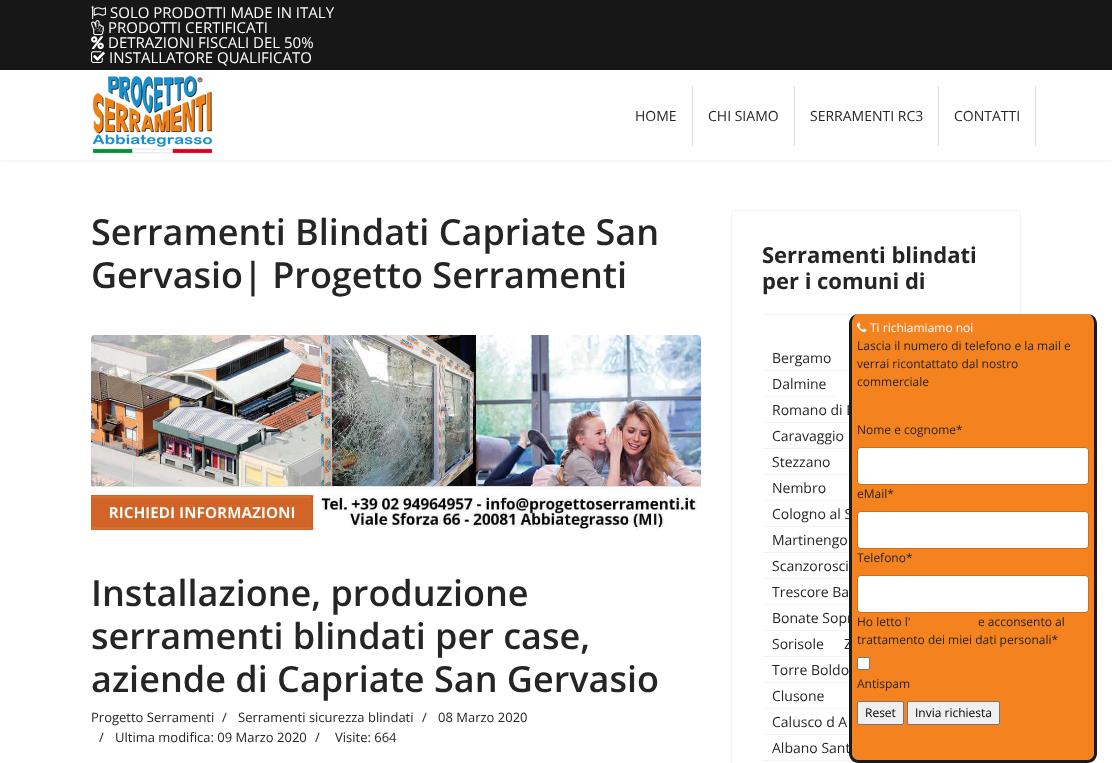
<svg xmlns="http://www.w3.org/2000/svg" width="1112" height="763">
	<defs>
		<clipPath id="clip1"><path d="M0 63H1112V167H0ZM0 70H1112V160H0Z" clip-rule="evenodd" /></clipPath>
	</defs>
	<rect width="100%" height="100%" fill="#FFFFFF" />
	<rect x="0" y="0" width="1112" height="70" fill="#171717" />
	<image x="91" y="6" width="15" height="14" href="assets/img1.png" />
	<text x="110" y="18" font-family="Open Sans" font-size="15" fill="#FFFFFF">SOLO PRODOTTI MADE IN ITALY</text>
	<image x="91" y="20" width="13" height="16" href="assets/img2.png" />
	<text x="108" y="33" font-family="Open Sans" font-size="15" fill="#FFFFFF">PRODOTTI CERTIFICATI</text>
	<image x="91" y="36" width="13" height="14" href="assets/img3.png" />
	<text x="108" y="48" font-family="Open Sans" font-size="15" fill="#FFFFFF">DETRAZIONI FISCALI DEL 50%</text>
	<image x="91" y="51" width="14" height="12" href="assets/img4.png" />
	<text x="109" y="63" font-family="Open Sans" font-size="15" fill="#FFFFFF">INSTALLATORE QUALIFICATO</text>
	<g clip-path="url(#clip1)">
		<rect x="0" y="70" width="1112" height="90" fill="#000000" fill-opacity="0.1" filter="blur(2px)" />
	</g>
	<image x="92" y="75" width="121" height="79" href="assets/img5.png" />
	<rect x="692" y="86" width="1" height="60" fill="#DEDEDE" />
	<text x="635" y="121" font-family="Open Sans" font-size="14" fill="#252525">HOME</text>
	<rect x="794" y="86" width="1" height="60" fill="#DEDEDE" />
	<text x="708" y="121" font-family="Open Sans" font-size="14" fill="#252525">CHI SIAMO</text>
	<rect x="938" y="86" width="1" height="60" fill="#DEDEDE" />
	<text x="810" y="121" font-family="Open Sans" font-size="14" fill="#252525">SERRAMENTI RC3</text>
	<rect x="1035" y="86" width="1" height="60" fill="#DEDEDE" />
	<text x="954" y="121" font-family="Open Sans" font-size="14" fill="#252525">CONTATTI</text>
	<g font-family="Open Sans" font-size="36" font-weight="600" fill="#252525">
		<text x="91" y="245">Serramenti Blindati Capriate San</text>
		<text x="91" y="288">Gervasio| Progetto Serramenti</text>
	</g>
	<image x="91" y="335" width="610" height="196" href="assets/img6.png" />
	<g font-family="Open Sans" font-size="36" font-weight="600" fill="#252525">
		<text x="91" y="606">Installazione, produzione</text>
		<text x="91" y="649">serramenti blindati per case,</text>
		<text x="91" y="692">aziende di Capriate San Gervasio</text>
	</g>
	<g font-family="Open Sans" font-size="13" fill="#252525">
		<text x="91" y="722">Progetto Serramenti</text>
		<text x="222" y="722">/</text>
		<text x="238" y="722">Serramenti sicurezza blindati</text>
		<text x="422" y="722">/</text>
		<text x="438" y="722">08 Marzo 2020</text>
		<text x="99" y="742">/</text>
		<text x="115" y="742">Ultima modifica: 09 Marzo 2020</text>
		<text x="315" y="742">/</text>
		<text x="335" y="742">Visite: 664</text>
	</g>
	<rect x="731.5" y="210.5" width="289" height="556" rx="2.5" fill="none" stroke="#F3F3F3" />
	<rect x="762" y="314" width="97" height="1" fill="#F3F3F3" />
	<g font-family="Open Sans" font-size="22" font-weight="700" fill="#252525">
		<text x="762" y="263">Serramenti blindati</text>
		<text x="762" y="289">per i comuni di</text>
	</g>
	<rect x="762" y="370" width="87" height="1" fill="#F3F3F3" />
	<text x="772" y="363" font-family="Open Sans" font-size="14" fill="#252525">Bergamo</text>
	<rect x="762" y="396" width="74" height="1" fill="#F3F3F3" />
	<text x="772" y="389" font-family="Open Sans" font-size="14" fill="#252525">Dalmine</text>
	<rect x="762" y="422" width="87" height="1" fill="#F3F3F3" />
	<text x="772" y="415" font-family="Open Sans" font-size="14" fill="#252525">Romano di L</text>
	<rect x="762" y="448" width="92" height="1" fill="#F3F3F3" />
	<text x="772" y="441" font-family="Open Sans" font-size="14" fill="#252525">Caravaggio</text>
	<rect x="762" y="474" width="87" height="1" fill="#F3F3F3" />
	<text x="772" y="467" font-family="Open Sans" font-size="14" fill="#252525">Stezzano</text>
	<rect x="762" y="500" width="87" height="1" fill="#F3F3F3" />
	<text x="772" y="493" font-family="Open Sans" font-size="14" fill="#252525">Nembro</text>
	<rect x="762" y="526" width="87" height="1" fill="#F3F3F3" />
	<text x="772" y="519" font-family="Open Sans" font-size="14" fill="#252525">Cologno al S</text>
	<rect x="762" y="552" width="87" height="1" fill="#F3F3F3" />
	<text x="772" y="545" font-family="Open Sans" font-size="14" fill="#252525">Martinengo</text>
	<rect x="762" y="578" width="87" height="1" fill="#F3F3F3" />
	<text x="772" y="571" font-family="Open Sans" font-size="14" fill="#252525">Scanzorosci</text>
	<rect x="762" y="604" width="87" height="1" fill="#F3F3F3" />
	<text x="772" y="597" font-family="Open Sans" font-size="14" fill="#252525">Trescore Ba</text>
	<rect x="762" y="630" width="87" height="1" fill="#F3F3F3" />
	<text x="772" y="623" font-family="Open Sans" font-size="14" fill="#252525">Bonate Sopr</text>
	<rect x="762" y="656" width="87" height="1" fill="#F3F3F3" />
	<g font-family="Open Sans" font-size="14" fill="#252525">
		<text x="772" y="649">Sorisole</text>
		<text x="844" y="649">Z</text>
	</g>
	<rect x="762" y="682" width="87" height="1" fill="#F3F3F3" />
	<text x="772" y="675" font-family="Open Sans" font-size="14" fill="#252525">Torre Boldo</text>
	<rect x="762" y="708" width="87" height="1" fill="#F3F3F3" />
	<text x="772" y="701" font-family="Open Sans" font-size="14" fill="#252525">Clusone</text>
	<rect x="762" y="734" width="87" height="1" fill="#F3F3F3" />
	<text x="772" y="727" font-family="Open Sans" font-size="14" fill="#252525">Calusco d A</text>
	<rect x="762" y="760" width="91" height="1" fill="#F3F3F3" />
	<text x="772" y="753" font-family="Open Sans" font-size="14" fill="#252525">Albano Sant</text>
	<path d="M859 314H1087C1091 314 1094 318 1094 324V753C1094 757 1091 760 1087 760H859C855 760 852 757 852 753V324C852 318 855 314 859 314Z" fill="#F3821F" />
	<path d="M859 314H1087C1093 314 1097 318 1097 324V753C1097 759 1093 763 1087 763H859C853 763 849 759 849 753V324C849 318 853 314 859 314ZM859 314H1087C1091 314 1094 318 1094 324V753C1094 757 1091 760 1087 760H859C855 760 852 757 852 753V324C852 318 855 314 859 314Z" fill="#1A1A1A" fill-rule="evenodd" />
	<image x="857" y="322" width="10" height="10" href="assets/img7.png" />
	<text x="870" y="332" font-family="Open Sans" font-size="12" fill="#FFFFFF">Ti richiamiamo noi</text>
	<g font-family="Open Sans" font-size="12" fill="#252525">
		<text x="857" y="350">Lascia il numero di telefono e la mail e</text>
		<text x="857" y="368">verrai ricontattato dal nostro</text>
		<text x="857" y="386">commerciale</text>
		<text x="857" y="434">Nome e cognome*</text>
	</g>
	<rect x="858" y="448" width="230" height="36" rx="3" fill="#FFFFFF" />
	<rect x="857.5" y="447.5" width="231" height="37" rx="3.5" fill="none" stroke="#000000" stroke-opacity="0.15" />
	<text x="857" y="498" font-family="Open Sans" font-size="12" fill="#252525">eMail*</text>
	<rect x="858" y="512" width="230" height="36" rx="3" fill="#FFFFFF" />
	<rect x="857.5" y="511.5" width="231" height="37" rx="3.5" fill="none" stroke="#000000" stroke-opacity="0.15" />
	<text x="857" y="562" font-family="Open Sans" font-size="12" fill="#252525">Telefono*</text>
	<rect x="858" y="576" width="230" height="36" rx="3" fill="#FFFFFF" />
	<rect x="857.5" y="575.5" width="231" height="37" rx="3.5" fill="none" stroke="#000000" stroke-opacity="0.15" />
	<g font-family="Open Sans" font-size="12" fill="#252525">
		<text x="857" y="626">Ho letto l'</text>
		<text x="978" y="626">e acconsento al</text>
		<text x="857" y="644">trattamento dei miei dati personali*</text>
	</g>
	<rect x="857.5" y="657.5" width="12" height="12" rx="1.5" fill="#FFFFFF" stroke="#767676" />
	<text x="857" y="688" font-family="Open Sans" font-size="12" fill="#252525">Antispam</text>
	<rect x="857.5" y="701.5" width="46" height="23" rx="1.5" fill="#EFEFEF" stroke="#767676" />
	<text x="865" y="717" font-family="Open Sans" font-size="12" fill="#000000">Reset</text>
	<rect x="907.5" y="701.5" width="92" height="23" rx="1.5" fill="#EFEFEF" stroke="#767676" />
	<text x="915" y="717" font-family="Open Sans" font-size="12" fill="#000000">Invia richiesta</text>
</svg>
